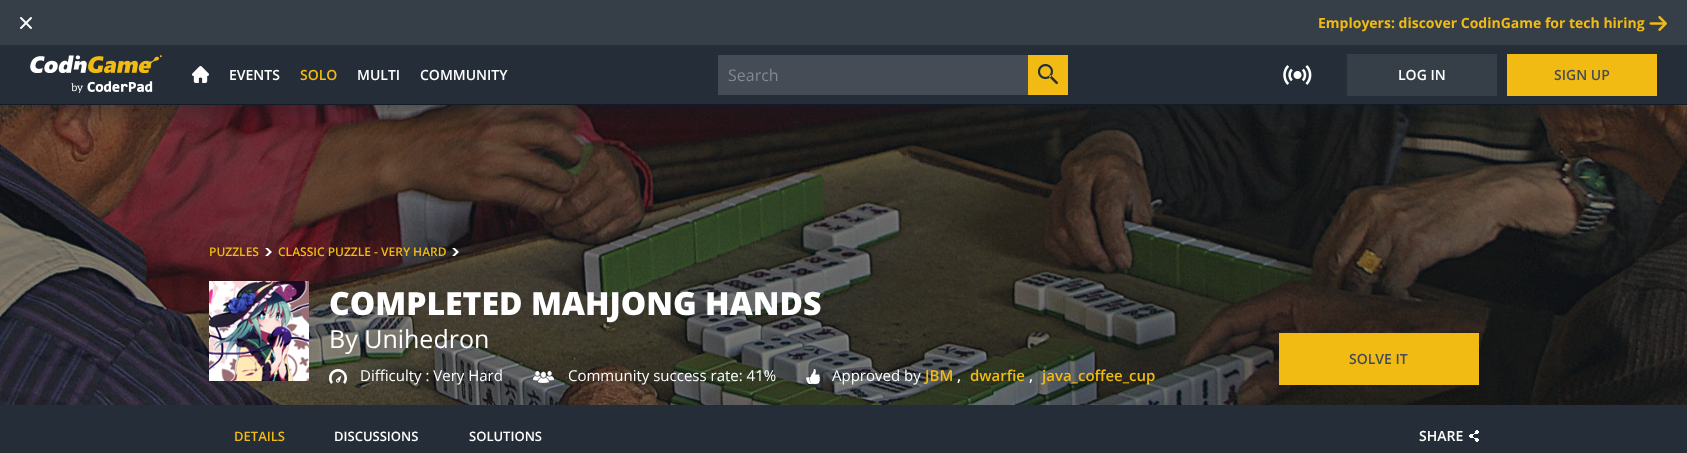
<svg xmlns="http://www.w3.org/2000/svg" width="1687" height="453">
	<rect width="100%" height="100%" fill="#363E48" />
	<image x="20" y="17" width="12" height="12" href="assets/img1.png" />
	<text x="1318" y="28" font-family="Open Sans" font-size="14" font-weight="700" fill="#F2BB13">Employers: discover CodinGame for tech hiring</text>
	<image x="1649" y="16" width="18" height="15" href="assets/img2.png" />
	<image x="0" y="105" width="1687" height="300" href="assets/img7.png" />
	<rect x="25" y="95" width="1637" height="10" fill="#131C25" filter="blur(12.5px)" />
	<rect x="0" y="45" width="1687" height="59" fill="#252E38" />
	<rect x="0" y="104" width="1687" height="1" fill="#131C25" />
	<image x="30" y="55" width="132" height="38" href="assets/img3.png" />
	<image x="192" y="66" width="17" height="17" href="assets/img4.png" />
	<text x="229" y="80" font-family="Open Sans" font-size="14" font-weight="600" fill="#FFFFFF">EVENTS</text>
	<text x="300" y="80" font-family="Open Sans" font-size="14" font-weight="600" fill="#F2BB13">SOLO</text>
	<g font-family="Open Sans" font-size="14" font-weight="600" fill="#FFFFFF">
		<text x="357" y="80">MULTI</text>
		<text x="420" y="80">COMMUNITY</text>
	</g>
	<rect x="718" y="55" width="310" height="40" fill="#454C55" />
	<text x="728" y="81" font-family="Open Sans" font-size="16" fill="#838891">Search</text>
	<rect x="1028" y="55" width="40" height="40" fill="#F2BB13" />
	<image x="1038" y="64" width="20" height="21" href="assets/img5.png" />
	<image x="1283" y="65" width="29" height="20" href="assets/img6.png" />
	<rect x="1347" y="54" width="150" height="42" fill="#363F48" />
	<text x="1398" y="80" font-family="Open Sans" font-size="14" font-weight="600" fill="#FFFFFF">LOG IN</text>
	<rect x="1507" y="54" width="150" height="42" fill="#F2BB13" />
	<text x="1554" y="80" font-family="Open Sans" font-size="14" font-weight="600" fill="#454C55">SIGN UP</text>
	<text x="209" y="256" font-family="Open Sans" font-size="12" font-weight="600" fill="#F2BB13">PUZZLES</text>
	<image x="265" y="248" width="7" height="8" href="assets/img8.png" />
	<text x="278" y="256" font-family="Open Sans" font-size="12" font-weight="600" fill="#F2BB13">CLASSIC PUZZLE - VERY HARD</text>
	<image x="452" y="248" width="7" height="8" href="assets/img9.png" />
	<image x="209" y="281" width="100" height="100" href="assets/img10.png" />
	<text x="329" y="315" font-family="Open Sans" font-size="32" font-weight="800" fill="#FFFFFF">COMPLETED MAHJONG HANDS</text>
	<text x="329" y="348" font-family="Open Sans" font-size="25" fill="#FFFFFF">By Unihedron</text>
	<image x="329" y="369" width="18" height="15" href="assets/img11.png" />
	<text x="360" y="381" font-family="Open Sans" font-size="15" fill="#FFFFFF">Difficulty : Very Hard</text>
	<image x="533" y="371" width="21" height="12" href="assets/img12.png" />
	<text x="568" y="381" font-family="Open Sans" font-size="15" fill="#FFFFFF">Community success rate: 41%</text>
	<image x="806" y="369" width="14" height="15" href="assets/img13.png" />
	<text x="832" y="381" font-family="Open Sans" font-size="15" fill="#FFFFFF">Approved by</text>
	<text x="925" y="381" font-family="Open Sans" font-size="15" font-weight="600" fill="#F2BB13">JBM</text>
	<text x="957" y="381" font-family="Open Sans" font-size="15" font-weight="600" fill="#FFFFFF">,</text>
	<text x="970" y="381" font-family="Open Sans" font-size="15" font-weight="600" fill="#F2BB13">dwarfie</text>
	<text x="1029" y="381" font-family="Open Sans" font-size="15" font-weight="600" fill="#FFFFFF">,</text>
	<text x="1042" y="381" font-family="Open Sans" font-size="15" font-weight="600" fill="#F2BB13">java_coffee_cup</text>
	<rect x="1279" y="333" width="200" height="52" fill="#F2BB13" />
	<text x="1349" y="364" font-family="Open Sans" font-size="14" font-weight="600" fill="#454C55">SOLVE IT</text>
	<rect x="0" y="405" width="1687" height="48" fill="#252E38" />
	<text x="234" y="441" font-family="Open Sans" font-size="13" font-weight="600" fill="#F2BB13">DETAILS</text>
	<g font-family="Open Sans" font-size="13" font-weight="600" fill="#FFFFFF">
		<text x="334" y="441">DISCUSSIONS</text>
		<text x="469" y="441">SOLUTIONS</text>
	</g>
	<text x="1419" y="441" font-family="Open Sans" font-size="14" font-weight="600" fill="#FFFFFF">SHARE</text>
	<image x="1469" y="430" width="10" height="12" href="assets/img14.png" />
</svg>
